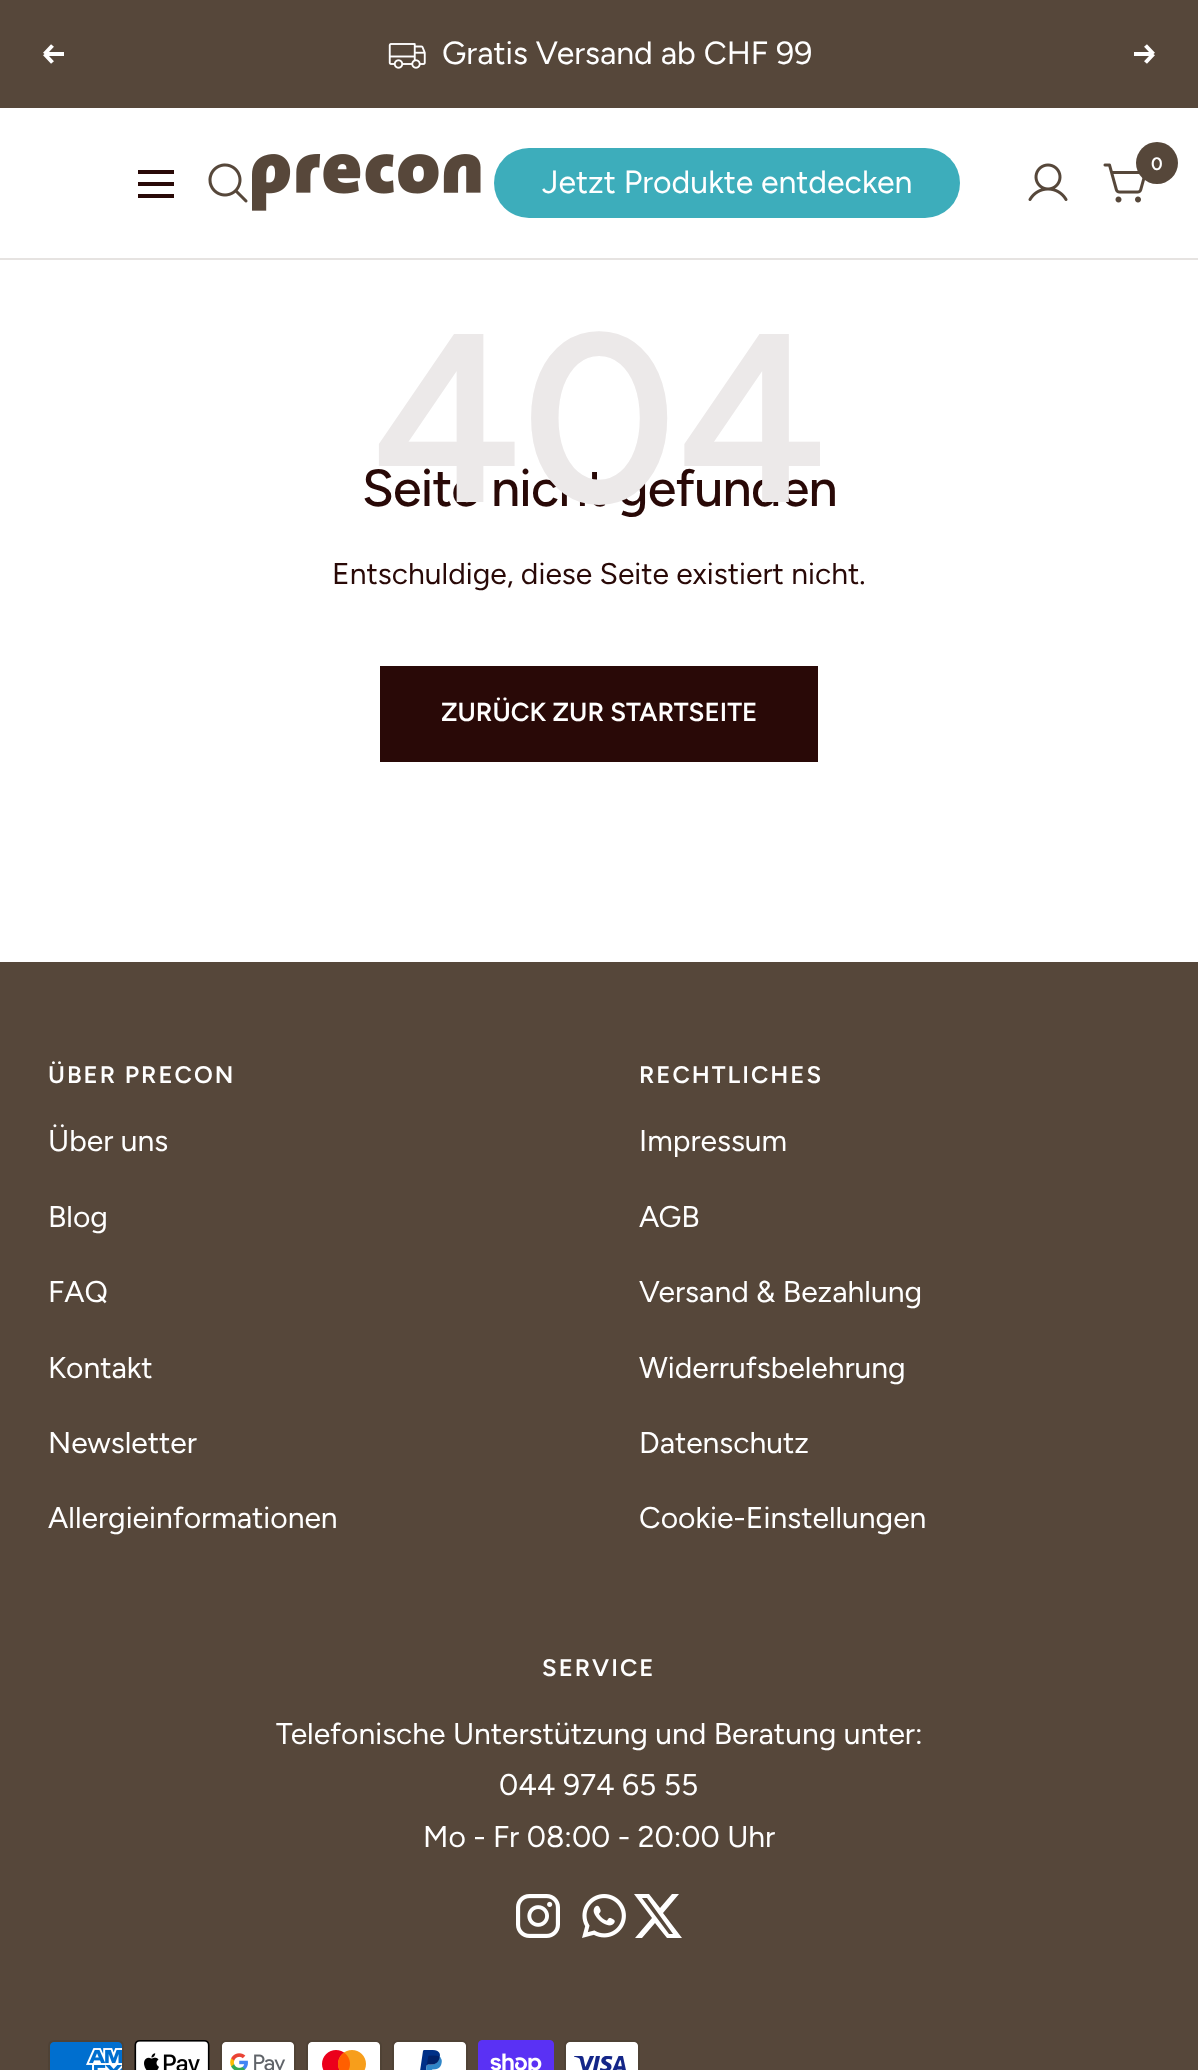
<svg xmlns="http://www.w3.org/2000/svg" width="1198" height="2070">
	<rect width="100%" height="100%" fill="#FFFFFF" />
	<rect x="0" y="0" width="1198" height="108" fill="#56473A" />
	<path d="M64 54H44.5M44.5 54L52.5 62.5M44.5 54L52.5 45.5" fill="none" stroke="#FFFFFF" stroke-width="4" />
	<image x="388" y="43" width="38" height="26" href="assets/img1.png" />
	<text x="442" y="64" font-family="Figtree" font-size="32" fill="#FFFFFF">Gratis Versand ab CHF 99</text>
	<path d="M1134 54H1153.5M1153.5 54L1145.5 62.5M1153.5 54L1145.5 45.5" fill="none" stroke="#FFFFFF" stroke-width="4" />
	<rect x="0" y="258" width="1198" height="2" fill="#E6E3E1" />
	<path d="M138 172H174M138 196H174ZM138 184H174Z" fill="none" stroke="#290907" stroke-width="4" />
	<image x="208" y="163" width="40" height="40" href="assets/img2.png" />
	<image x="252" y="154" width="229" height="57" href="assets/img3.png" />
	<image x="1028" y="163" width="40" height="38" href="assets/img4.png" />
	<image x="1103" y="163" width="42" height="40" href="assets/img5.png" />
	<circle cx="1157" cy="163" r="21" fill="#56473A" />
	<text x="1151" y="170" font-family="Figtree" font-size="18" font-weight="600" fill="#FFFFFF">0</text>
	<rect x="494" y="148" width="466" height="70" rx="35" fill="#3DADBB" />
	<text x="542" y="193" font-family="Figtree" font-size="32" fill="#FFFFFF">Jetzt Produkte entdecken</text>
	<text x="362" y="506" font-family="Figtree" font-size="52" font-weight="500" letter-spacing="-0.8" fill="#290907">Seite nicht gefunden</text>
	<text x="371" y="502" font-family="Figtree" font-size="240" font-weight="600" fill="#ECE9E9">404</text>
	<text x="332" y="584" font-family="Figtree" font-size="30" fill="#290907">Entschuldige, diese Seite existiert nicht.</text>
	<rect x="380" y="666" width="438" height="96" fill="#290907" />
	<text x="441" y="721" font-family="Figtree" font-size="26" font-weight="600" fill="#FFFFFF">ZURÜCK ZUR STARTSEITE</text>
	<rect x="0" y="962" width="1198" height="1108" fill="#56473A" />
	<text x="48" y="1083" font-family="Figtree" font-size="24" font-weight="600" letter-spacing="2" fill="#FFFFFF">ÜBER PRECON</text>
	<g font-family="Figtree" font-size="30" fill="#FFFFFF">
		<text x="48" y="1151">Über uns</text>
		<text x="48" y="1227">Blog</text>
		<text x="48" y="1302">FAQ</text>
		<text x="48" y="1378">Kontakt</text>
		<text x="48" y="1453">Newsletter</text>
		<text x="48" y="1528">Allergieinformationen</text>
	</g>
	<text x="639" y="1083" font-family="Figtree" font-size="24" font-weight="600" letter-spacing="2" fill="#FFFFFF">RECHTLICHES</text>
	<g font-family="Figtree" font-size="30" fill="#FFFFFF">
		<text x="639" y="1151">Impressum</text>
		<text x="639" y="1227">AGB</text>
		<text x="639" y="1302">Versand &amp; Bezahlung</text>
		<text x="639" y="1378">Widerrufsbelehrung</text>
		<text x="639" y="1453">Datenschutz</text>
		<text x="639" y="1528">Cookie-Einstellungen</text>
	</g>
	<text x="542" y="1676" font-family="Figtree" font-size="24" font-weight="600" letter-spacing="2" fill="#FFFFFF">SERVICE</text>
	<g font-family="Figtree" font-size="30" fill="#FFFFFF">
		<text x="276" y="1744">Telefonische Unterstützung und Beratung unter:</text>
		<text x="499" y="1795">044 974 65 55</text>
		<text x="423" y="1847">Mo - Fr 08:00 - 20:00 Uhr</text>
	</g>
	<image x="516" y="1894" width="44" height="44" href="assets/img6.png" />
	<image x="582" y="1894" width="44" height="44" href="assets/img7.png" />
	<path d="M672 1894H679L663 1913L682 1938H667L655 1923L642 1938H635L652 1918L634 1894H649L660 1908ZM669 1934H673L647 1898H642Z" fill="#FFFFFF" />
	<image x="48" y="2040" width="76" height="30" href="assets/img8.png" />
	<image x="134" y="2040" width="76" height="30" href="assets/img9.png" />
	<image x="220" y="2040" width="76" height="30" href="assets/img10.png" />
	<image x="306" y="2040" width="76" height="30" href="assets/img11.png" />
	<image x="392" y="2040" width="76" height="30" href="assets/img12.png" />
	<image x="478" y="2040" width="76" height="30" href="assets/img13.png" />
	<image x="564" y="2040" width="76" height="30" href="assets/img14.png" />
</svg>
